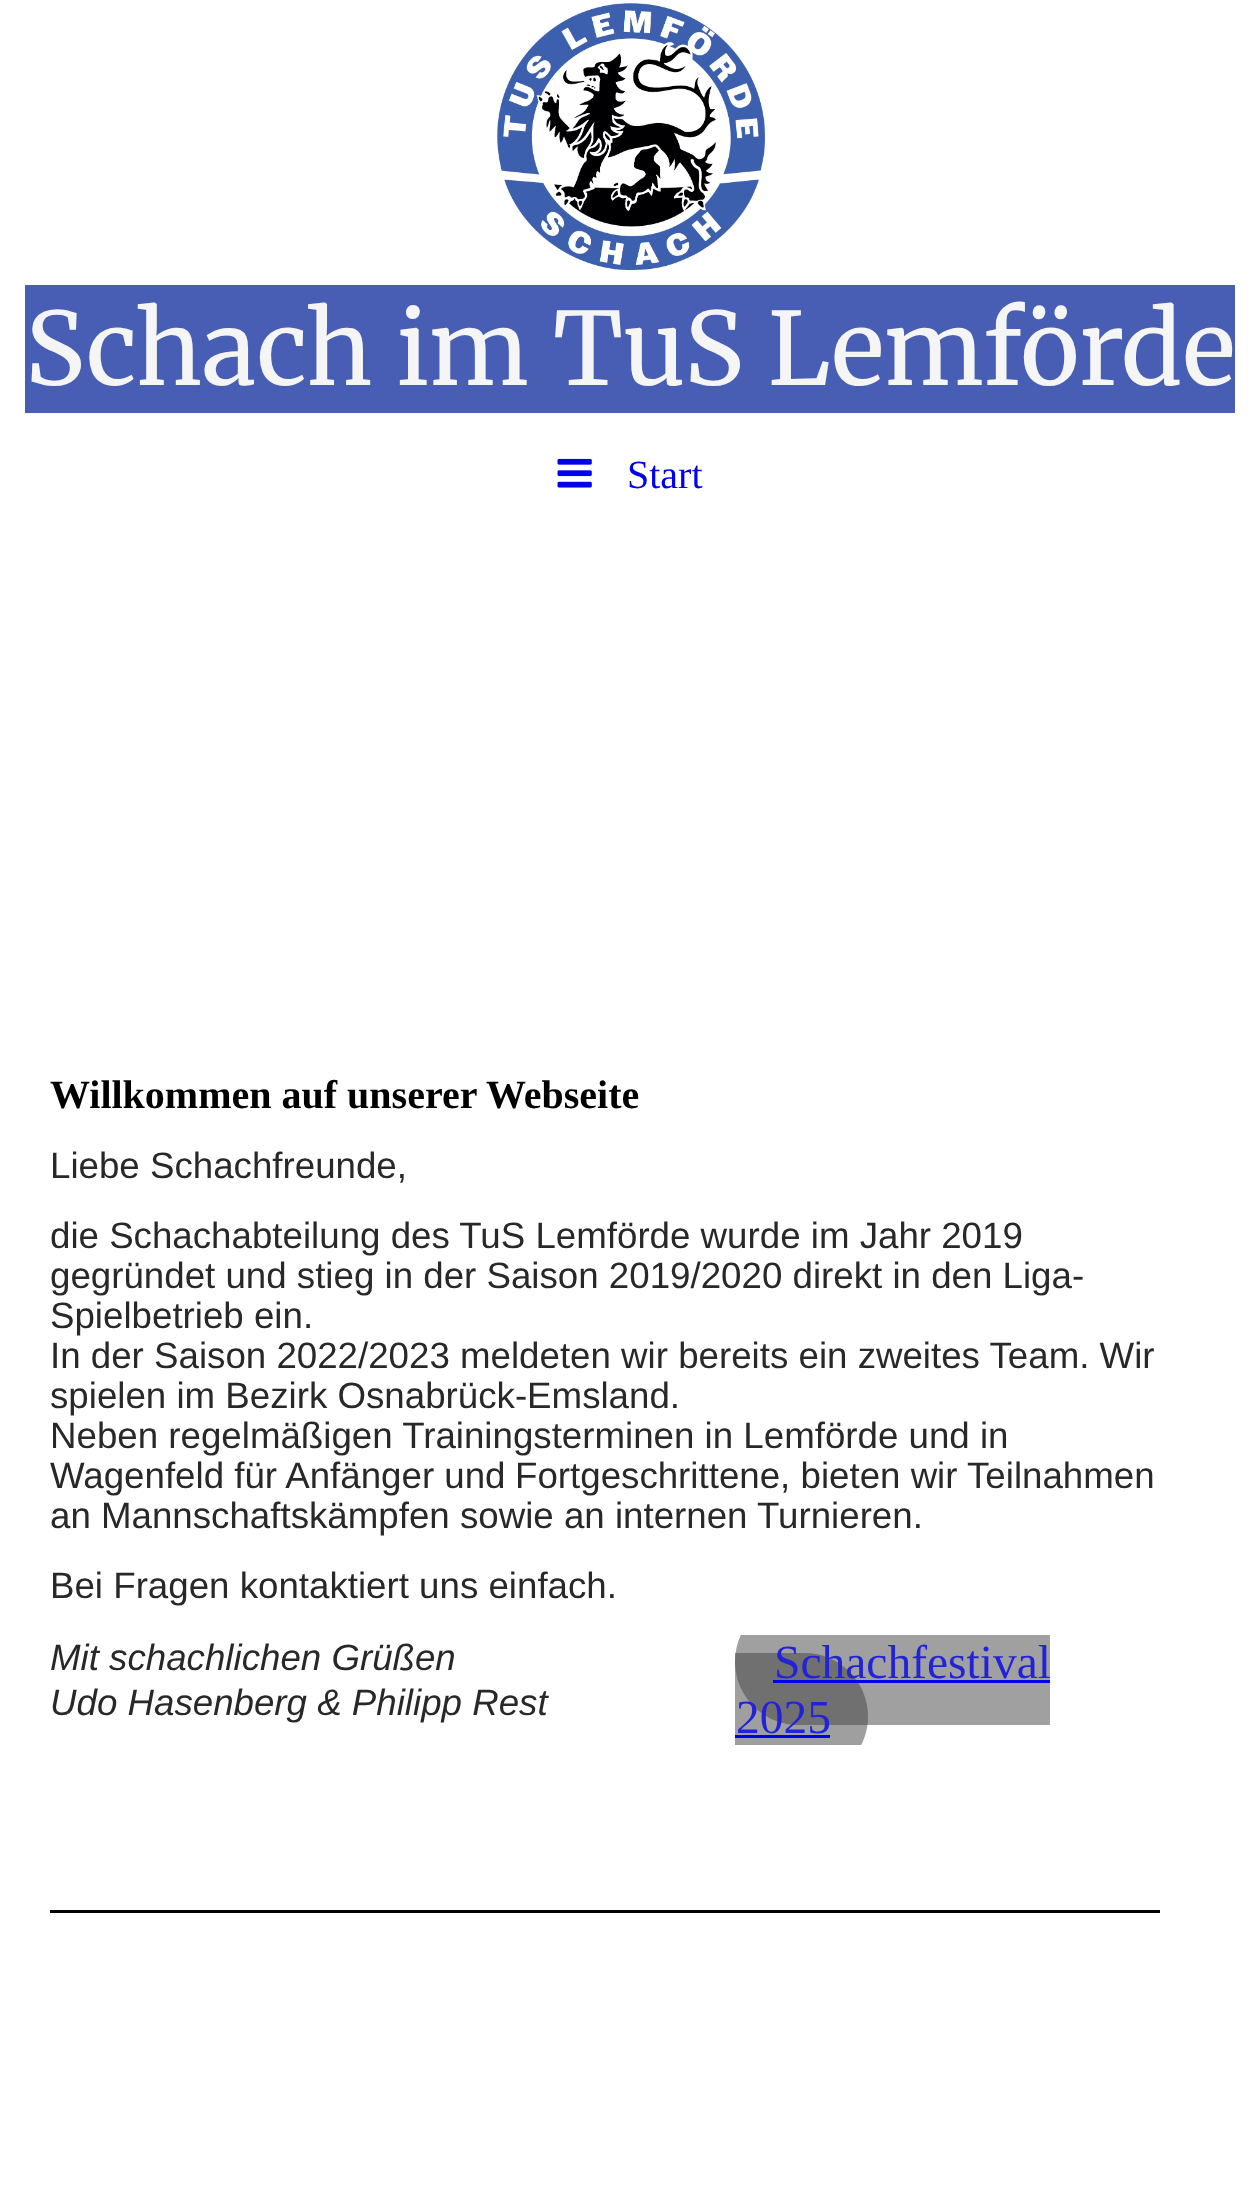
<svg xmlns="http://www.w3.org/2000/svg" width="1260" height="2211">
	<defs>
		<clipPath id="clip1"><rect x="735" y="1635" width="425" height="110" /></clipPath>
	</defs>
	<rect width="100%" height="100%" fill="#FFFFFF" />
	<image x="497" y="3" width="268" height="268" href="assets/img1.png" />
	<rect x="25" y="285" width="1210" height="128" fill="#475EB4" />
	<text x="25" y="385" font-family="Merriweather" font-size="100.75" fill="#F5F5F5">Schach im TuS Lemförde</text>
	<image x="557" y="458" width="35" height="30" href="assets/img2.png" />
	<text x="627" y="488" font-family="Liberation Serif" font-size="40" fill="#0000EE">Start</text>
	<text x="50" y="1108" font-family="Liberation Serif" font-size="40" font-weight="700" fill="#000000">Willkommen auf unserer Webseite</text>
	<g font-family="Liberation Sans" font-size="36.7" fill="#282828">
		<text x="50" y="1178">Liebe Schachfreunde,</text>
		<text x="50" y="1248">die Schachabteilung des TuS Lemförde wurde im Jahr 2019</text>
		<text x="50" y="1288">gegründet und stieg in der Saison 2019/2020 direkt in den Liga-</text>
		<text x="50" y="1328">Spielbetrieb ein.</text>
		<text x="50" y="1368">In der Saison 2022/2023 meldeten wir bereits ein zweites Team. Wir</text>
		<text x="50" y="1408">spielen im Bezirk Osnabrück-Emsland.</text>
		<text x="50" y="1448">Neben regelmäßigen Trainingsterminen in Lemförde und in</text>
		<text x="50" y="1488">Wagenfeld für Anfänger und</text>
		<text x="515" y="1488">Fortgeschrittene, bieten wir Teilnahmen</text>
		<text x="50" y="1528">an Mannschaftskämpfen sowie an internen Turnieren.</text>
		<text x="50" y="1598">Bei Fragen kontaktiert uns einfach.</text>
	</g>
	<g font-family="Liberation Sans" font-size="36.7" font-style="italic" fill="#282828">
		<text x="50" y="1670">Mit schachlichen Grüßen</text>
		<text x="50" y="1715">Udo Hasenberg &amp; Philipp Rest</text>
	</g>
	<g clip-path="url(#clip1)">
		<path d="M798.5 1598H1050V1725H798.5C763.5 1725 735 1696.5 735 1661.5C735 1626.5 763.5 1598 798.5 1598Z" fill="#A1A0A0" />
		<path d="M735 1653H804.5C839.5 1653 868 1681.5 868 1716.5C868 1751.5 839.5 1780 804.5 1780H735Z" fill="#424041" fill-opacity="0.5" />
	</g>
	<text x="774" y="1678" font-family="Liberation Serif" font-size="47.5" fill="#2223D9">Schachfestival</text>
	<rect x="773" y="1680" width="277" height="3" fill="#0000EE" />
	<text x="736" y="1733" font-family="Liberation Serif" font-size="47.5" fill="#2223D9">2025</text>
	<rect x="735" y="1735" width="95" height="3" fill="#0000EE" />
	<rect x="50" y="1910" width="1110" height="3" fill="#000000" />
</svg>
